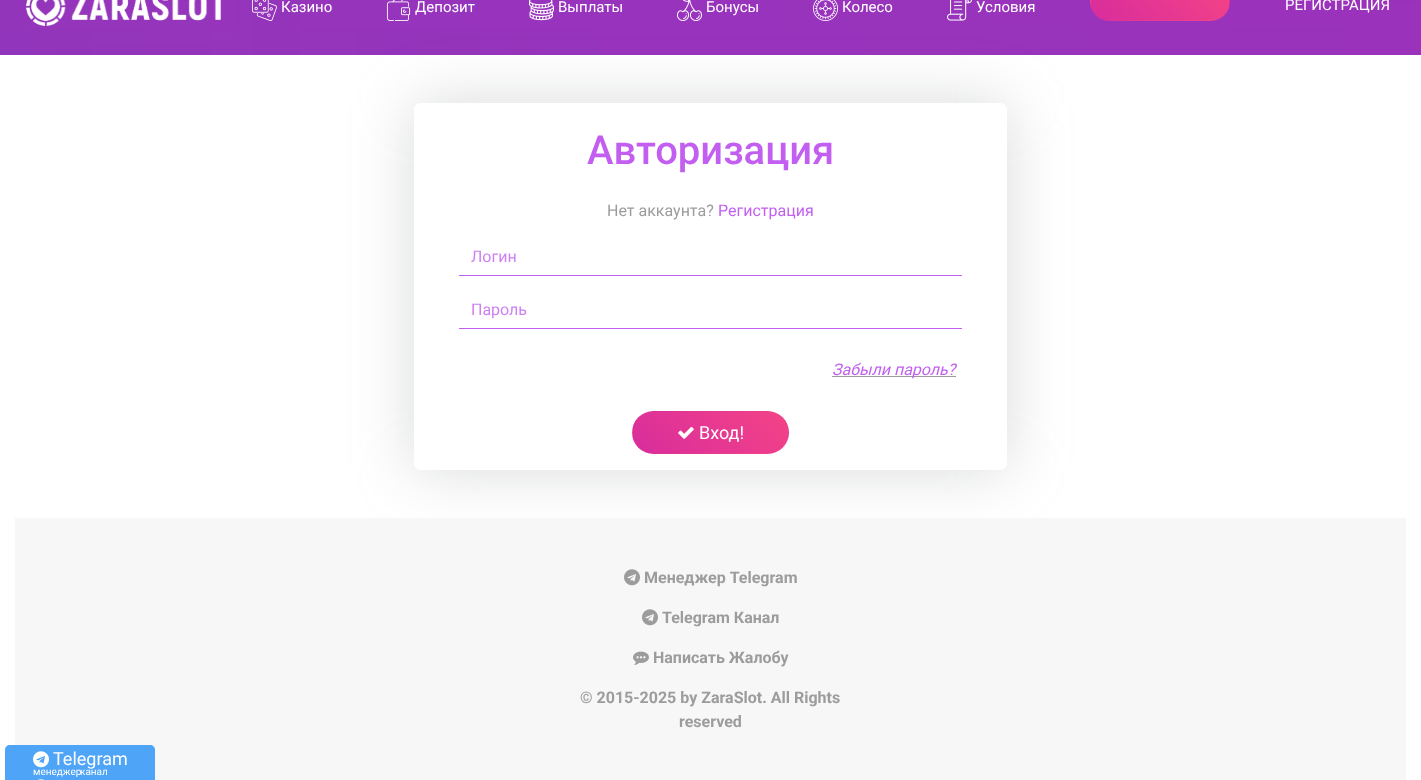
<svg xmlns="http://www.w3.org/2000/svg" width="1421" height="780">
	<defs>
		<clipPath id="clip1"><rect x="1090" y="-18" width="140" height="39" rx="19.5" /></clipPath>
		<linearGradient id="g1" gradientUnits="userSpaceOnUse" x1="978" y1="45" x2="1066" y2="-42"><stop offset="0" stop-color="#D82D9D" /><stop offset="1" stop-color="#F44386" /></linearGradient>
		<linearGradient id="g2" gradientUnits="userSpaceOnUse" x1="1116" y1="45" x2="1204" y2="-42"><stop offset="0" stop-color="#D82D9D" /><stop offset="1" stop-color="#F44386" /></linearGradient>
		<linearGradient id="g3" gradientUnits="userSpaceOnUse" x1="1254" y1="45" x2="1342" y2="-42"><stop offset="0" stop-color="#D82D9D" /><stop offset="1" stop-color="#F44386" /></linearGradient>
		<linearGradient id="g4" gradientUnits="userSpaceOnUse" x1="1116" y1="82" x2="1204" y2="-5.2"><stop offset="0" stop-color="#D82D9D" /><stop offset="1" stop-color="#F44386" /></linearGradient>
		<clipPath id="clip2"><path d="M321 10H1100V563H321ZM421 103H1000C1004 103 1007 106 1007 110V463C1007 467 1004 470 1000 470H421C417 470 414 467 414 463V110C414 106 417 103 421 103Z" clip-rule="evenodd" /></clipPath>
		<clipPath id="clip3"><rect x="632" y="411" width="157" height="43" rx="21.5" /></clipPath>
		<linearGradient id="g5" gradientUnits="userSpaceOnUse" x1="662" y1="441" x2="760" y2="343"><stop offset="0" stop-color="#D82D9D" /><stop offset="1" stop-color="#F44386" /></linearGradient>
		<linearGradient id="g6" gradientUnits="userSpaceOnUse" x1="507" y1="482" x2="605" y2="384"><stop offset="0" stop-color="#D82D9D" /><stop offset="1" stop-color="#F44386" /></linearGradient>
		<linearGradient id="g7" gradientUnits="userSpaceOnUse" x1="662" y1="482" x2="760" y2="384"><stop offset="0" stop-color="#D82D9D" /><stop offset="1" stop-color="#F44386" /></linearGradient>
		<linearGradient id="g8" gradientUnits="userSpaceOnUse" x1="817" y1="482" x2="915" y2="384"><stop offset="0" stop-color="#D82D9D" /><stop offset="1" stop-color="#F44386" /></linearGradient>
		<linearGradient id="g9" gradientUnits="userSpaceOnUse" x1="662" y1="523" x2="760" y2="425"><stop offset="0" stop-color="#D82D9D" /><stop offset="1" stop-color="#F44386" /></linearGradient>
	</defs>
	<rect width="100%" height="100%" fill="#FFFFFF" />
	<image x="0" y="0" width="1421" height="55" href="assets/img1.png" />
	<image x="26" y="0" width="195" height="26" href="assets/img2.png" />
	<image x="252" y="0" width="25" height="21" href="assets/img3.png" />
	<text x="281" y="12" font-family="Roboto" font-size="15" fill="#FFFFFF">Казино</text>
	<image x="386" y="0" width="25" height="21" href="assets/img4.png" />
	<text x="415" y="12" font-family="Roboto" font-size="15" fill="#FFFFFF">Депозит</text>
	<image x="529" y="0" width="25" height="21" href="assets/img5.png" />
	<text x="558" y="12" font-family="Roboto" font-size="15" fill="#FFFFFF">Выплаты</text>
	<image x="677" y="0" width="25" height="21" href="assets/img6.png" />
	<text x="706" y="12" font-family="Roboto" font-size="15" fill="#FFFFFF">Бонусы</text>
	<image x="813" y="0" width="25" height="21" href="assets/img7.png" />
	<text x="842" y="12" font-family="Roboto" font-size="15" fill="#FFFFFF">Колесо</text>
	<image x="947" y="0" width="25" height="21" href="assets/img8.png" />
	<text x="976" y="12" font-family="Roboto" font-size="15" fill="#FFFFFF">Условия</text>
	<g clip-path="url(#clip1)">
		<rect x="1090" y="0" width="1" height="8" fill="url(#g1)" />
		<rect x="1091" y="0" width="138" height="20" fill="url(#g2)" />
		<rect x="1229" y="0" width="1" height="8" fill="url(#g3)" />
		<rect x="1103" y="20" width="114" height="1" fill="url(#g4)" />
	</g>
	<text x="1285" y="10" font-family="Roboto" font-size="15" fill="#FFFFFF">РЕГИСТРАЦИЯ</text>
	<g clip-path="url(#clip2)">
		<rect x="414" y="103" width="593" height="367" rx="7" fill="#8A8B93" fill-opacity="0.32" filter="blur(30.5px)" />
	</g>
	<text x="587" y="164" font-family="Roboto" font-size="40" font-weight="500" fill="#C25FF1">Авторизация</text>
	<text x="607" y="216" font-family="Roboto" font-size="16" fill="#9C9C9C">Нет аккаунта?</text>
	<text x="718" y="216" font-family="Roboto" font-size="16" fill="#C25FF1">Регистрация</text>
	<rect x="459" y="275" width="503" height="1" fill="#C25FF1" />
	<text x="471" y="262" font-family="Roboto" font-size="16" fill="#CE7FF4">Логин</text>
	<rect x="459" y="328" width="503" height="1" fill="#C25FF1" />
	<text x="471" y="315" font-family="Roboto" font-size="16" fill="#CE7FF4">Пароль</text>
	<rect x="832" y="376" width="124" height="1" fill="#9C9C9C" />
	<text x="832" y="375" font-family="Roboto" font-size="16" font-style="italic" fill="#C25FF1">Забыли пароль?</text>
	<g clip-path="url(#clip3)">
		<rect x="647" y="411" width="127" height="1" fill="url(#g5)" />
		<rect x="632" y="426" width="1" height="13" fill="url(#g6)" />
		<rect x="633" y="412" width="155" height="41" fill="url(#g7)" />
		<rect x="788" y="426" width="1" height="13" fill="url(#g8)" />
		<rect x="647" y="453" width="127" height="1" fill="url(#g9)" />
	</g>
	<image x="678" y="426" width="16" height="13" href="assets/img9.png" />
	<text x="699" y="439" font-family="Roboto" font-size="18" fill="#FFFFFF">Вход!</text>
	<rect x="15" y="518" width="1391" height="262" fill="#F7F7F7" />
	<image x="624" y="569" width="16" height="17" href="assets/img10.png" />
	<text x="644" y="583" font-family="Roboto" font-size="16" font-weight="700" fill="#9C9C9C">Менеджер Telegram</text>
	<image x="642" y="609" width="16" height="17" href="assets/img10.png" />
	<text x="662" y="623" font-family="Roboto" font-size="16" font-weight="700" fill="#9C9C9C">Telegram Канал</text>
	<image x="633" y="651" width="16" height="14" href="assets/img11.png" />
	<g font-family="Roboto" font-size="16" font-weight="700" fill="#9C9C9C">
		<text x="653" y="663">Написать Жалобу</text>
		<text x="580" y="703">© 2015-2025 by ZaraSlot. All Rights</text>
		<text x="679" y="727">reserved</text>
	</g>
	<path d="M10 745H150C153 745 155 747 155 750V780H5V750C5 747 7 745 10 745Z" fill="#4EA4F6" />
	<image x="33" y="751" width="16" height="17" href="assets/img12.png" />
	<text x="53" y="765" font-family="Roboto" font-size="18" fill="#FFFFFF">Telegram</text>
	<g font-family="Roboto" font-size="10" fill="#FFFFFF">
		<text x="33" y="775">менеджер</text>
		<text x="80" y="775">канал</text>
	</g>
	<image x="38" y="779" width="6" height="1" href="assets/img13.png" />
</svg>
